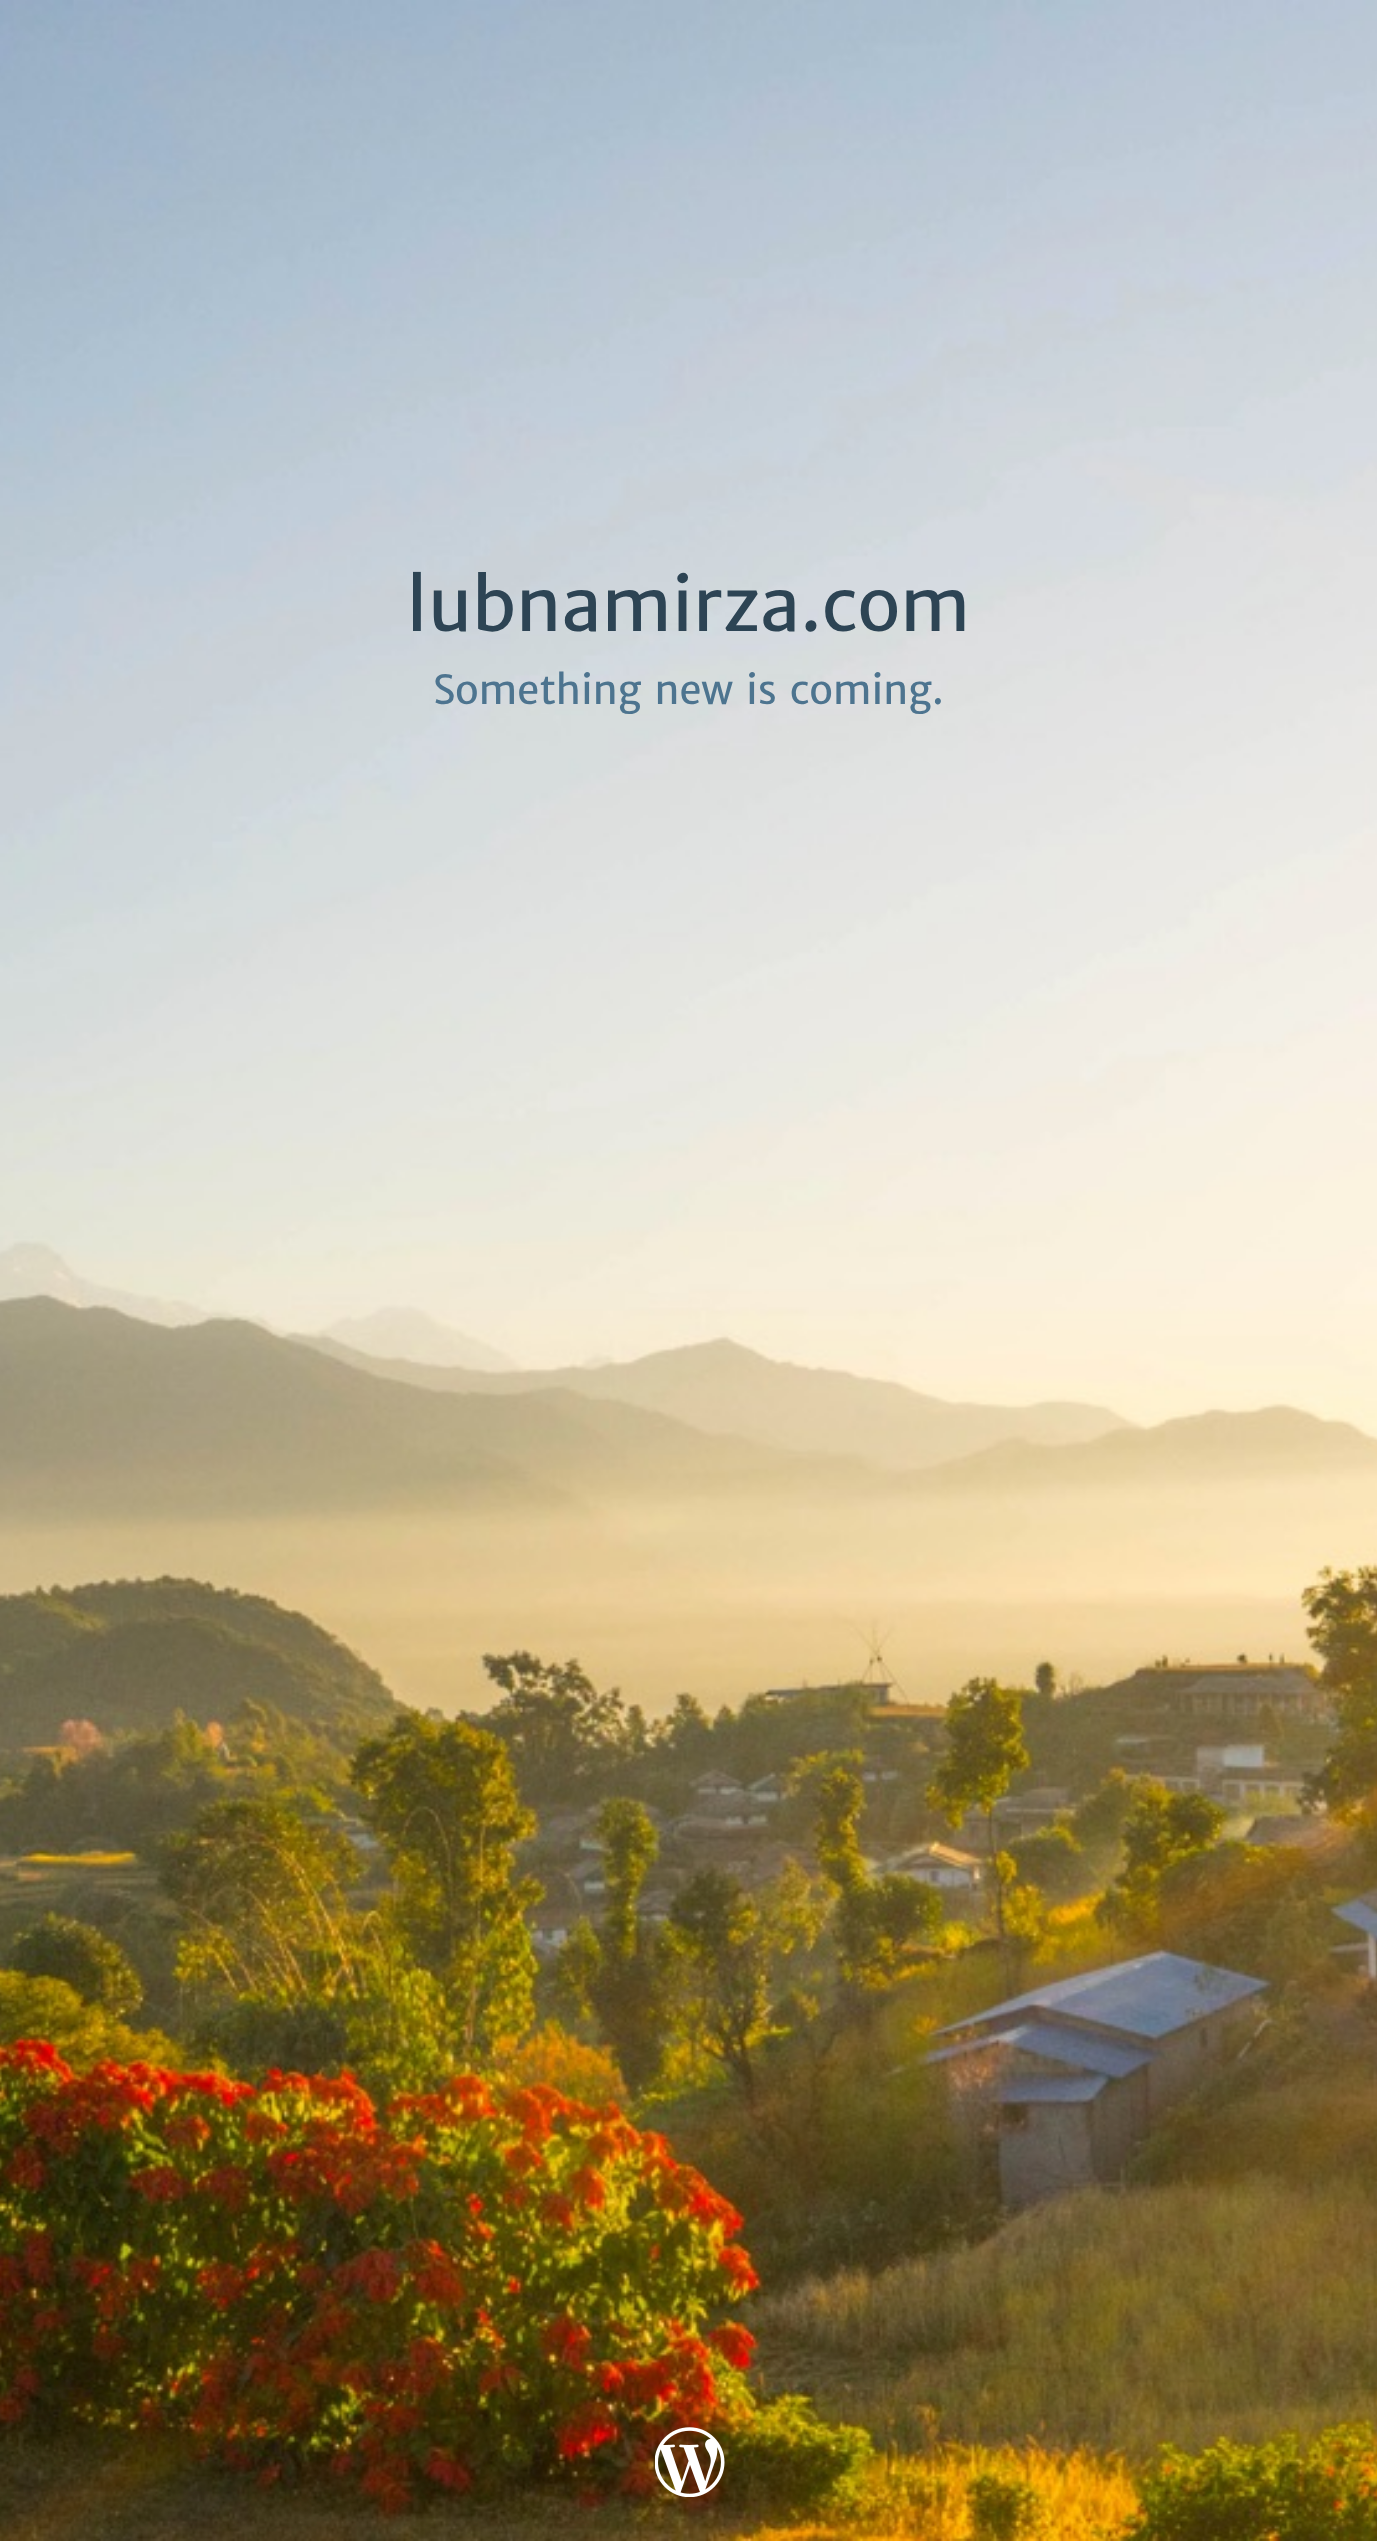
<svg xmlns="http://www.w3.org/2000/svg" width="1377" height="2541">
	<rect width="100%" height="100%" fill="#FFFFFF" />
	<image x="0" y="0" width="1377" height="2541" href="assets/img1.png" />
	<text x="406" y="631" font-family="Merriweather Sans" font-size="72.75" fill="#2D4454">lubnamirza.com</text>
	<text x="433" y="704" font-family="Merriweather Sans" font-size="40" fill="#4D748F">Something new is coming.</text>
	<image x="655" y="2427" width="70" height="70" href="assets/img2.png" />
</svg>
